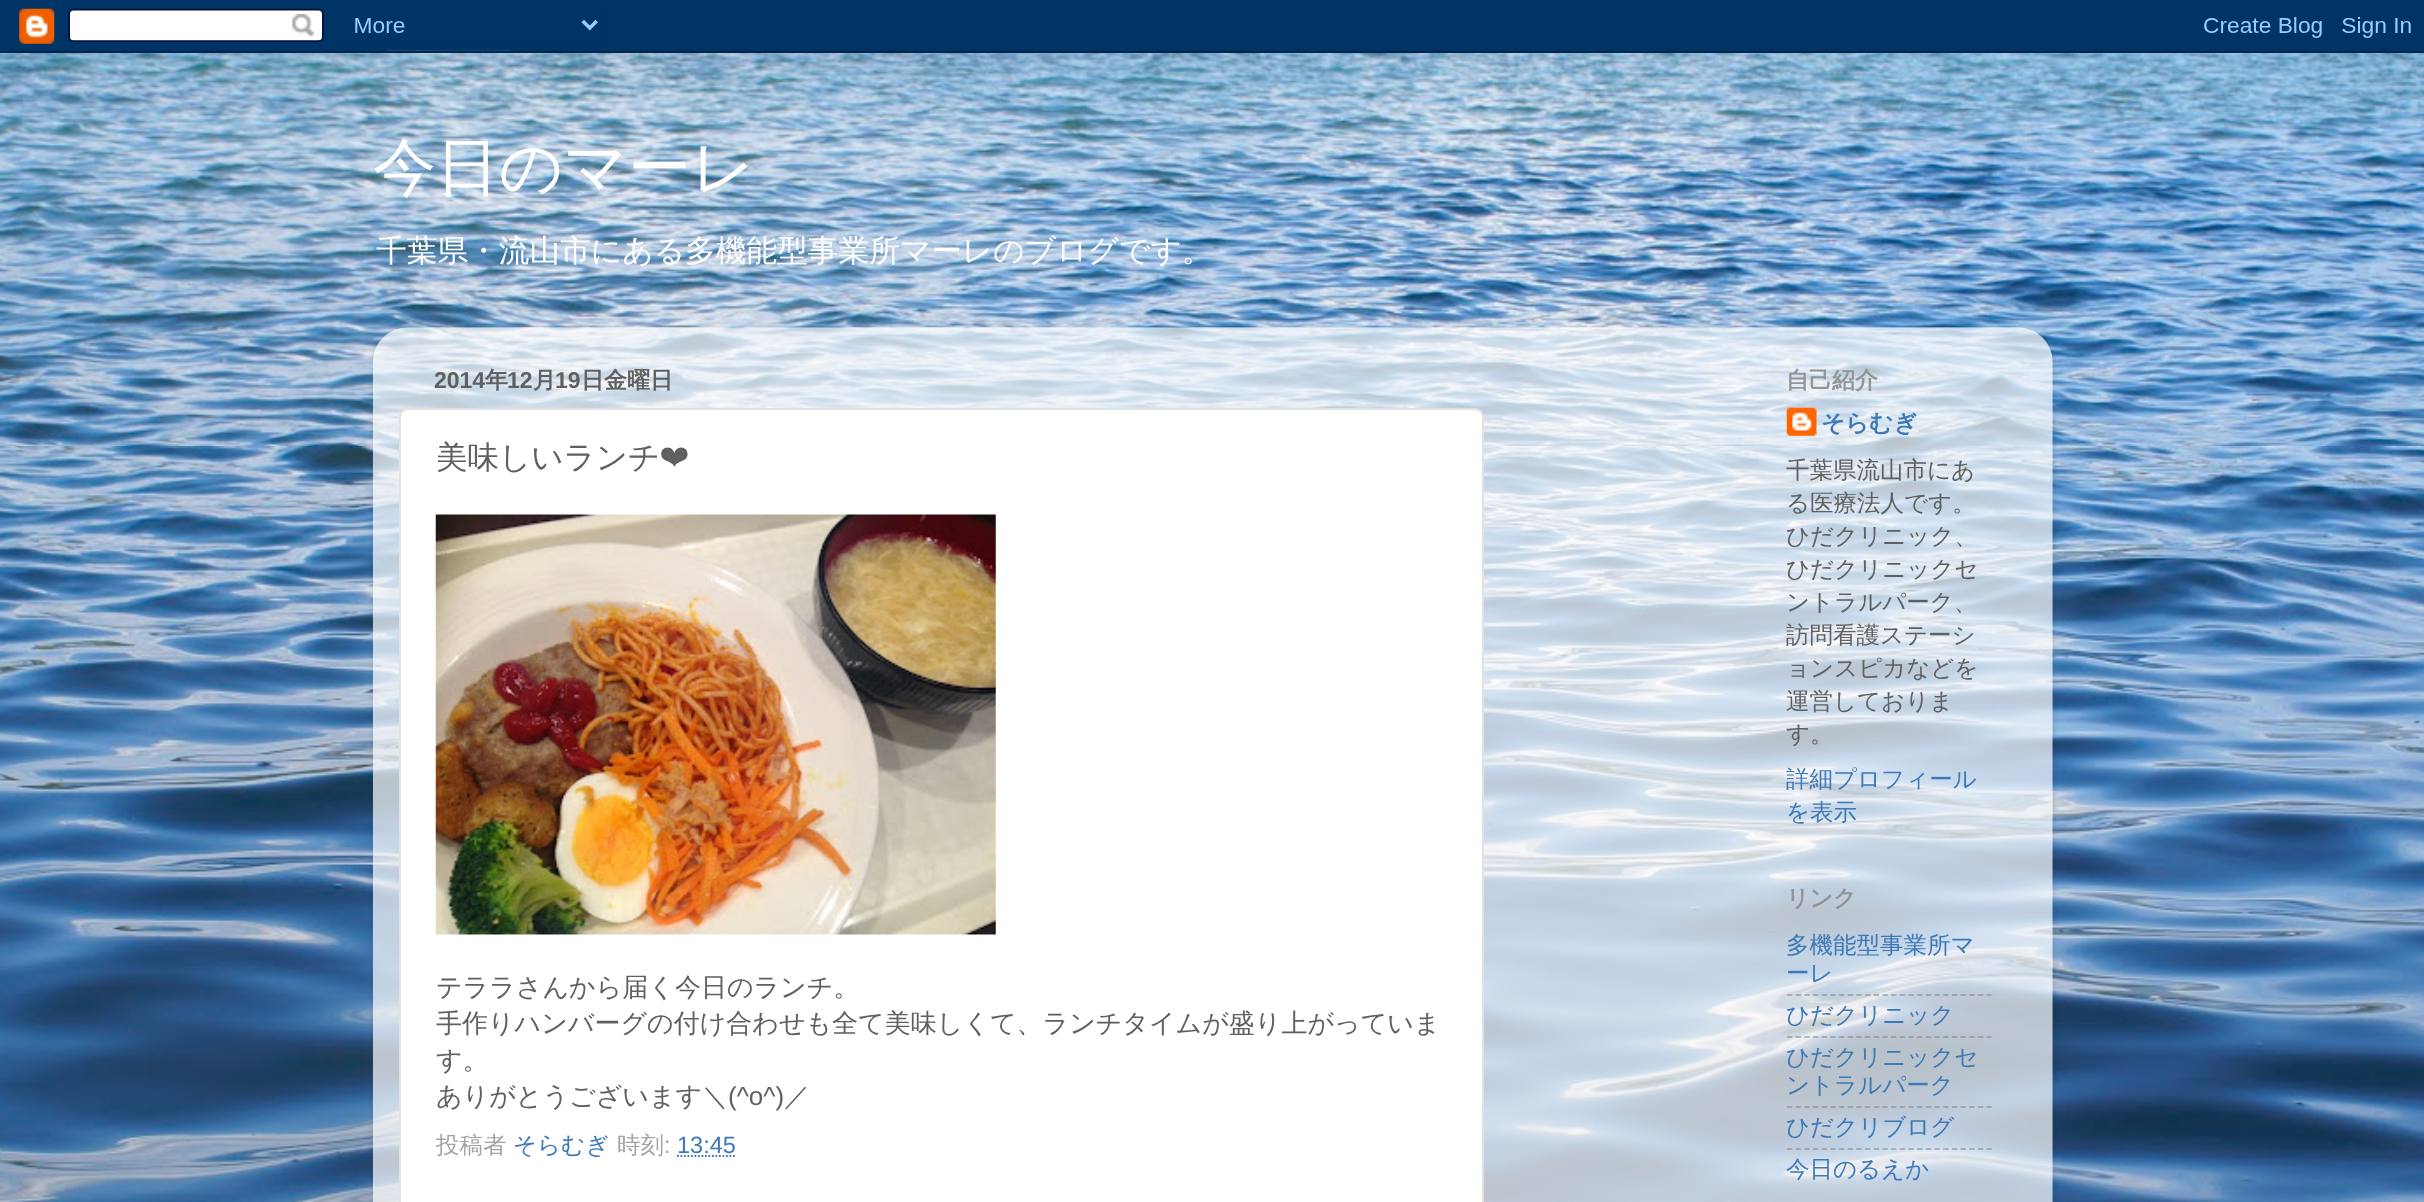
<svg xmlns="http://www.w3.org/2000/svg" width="2424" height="1202">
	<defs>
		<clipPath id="clip1"><path d="M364 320H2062V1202H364ZM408 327H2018C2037.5 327 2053 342.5 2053 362V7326H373V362C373 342.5 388.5 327 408 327Z" clip-rule="evenodd" /></clipPath>
	</defs>
	<rect width="100%" height="100%" fill="#FFFFFF" />
	<image x="0" y="50" width="2424" height="1152" href="assets/img1.png" />
	<image x="0" y="0" width="2424" height="53" href="assets/img2.png" />
	<text x="373" y="189" font-family="WenQuanYi Zen Hei" font-size="63" font-weight="500" fill="#FFFFFF">今日のマーレ</text>
	<text x="376" y="261" font-family="WenQuanYi Zen Hei" font-size="30.7" font-weight="500" fill="#FFFFFF">千葉県・流山市にある多機能型事業所マーレのブログです。</text>
	<g clip-path="url(#clip1)">
		<rect x="373" y="329" width="1680" height="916" rx="35" fill="#000000" fill-opacity="0.15" filter="blur(2.5px)" />
	</g>
	<image x="372" y="327" width="1681" height="875" href="assets/img3.png" />
	<text x="434" y="388" font-family="Liberation Sans" font-size="23" font-weight="700" fill="#606060">2014</text>
	<text x="485" y="388" font-family="WenQuanYi Zen Hei" font-size="23" font-weight="700" fill="#606060">年</text>
	<text x="507" y="388" font-family="Liberation Sans" font-size="23" font-weight="700" fill="#606060">12</text>
	<text x="533" y="388" font-family="WenQuanYi Zen Hei" font-size="23" font-weight="700" fill="#606060">月</text>
	<text x="555" y="388" font-family="Liberation Sans" font-size="23" font-weight="700" fill="#606060">19</text>
	<text x="581" y="388" font-family="WenQuanYi Zen Hei" font-size="23" font-weight="700" fill="#606060">日金曜日</text>
	<rect x="400" y="409" width="1083" height="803" rx="8" fill="#FFFFFF" stroke="#E2E2E2" stroke-width="2" />
	<text x="436" y="468" font-family="WenQuanYi Zen Hei" font-size="31.5" font-weight="500" fill="#606060">美味しいランチ</text>
	<text x="660" y="468" font-family="FreeSans" font-size="31.5" fill="#606060">❤︎</text>
	<image x="435" y="514" width="561" height="421" href="assets/img4.png" />
	<g font-family="WenQuanYi Zen Hei" font-size="26" font-weight="500" fill="#606060">
		<text x="436" y="996">テララさんから届く今日のランチ。</text>
		<text x="436" y="1032">手作りハンバーグの付け合わせも全て美味しくて、ランチタイムが盛り上がっていま</text>
		<text x="436" y="1069">す。</text>
		<text x="436" y="1105">ありがとうございます＼</text>
	</g>
	<text x="728" y="1105" font-family="Liberation Sans" font-size="26" fill="#606060">(^o^)</text>
	<text x="784" y="1105" font-family="WenQuanYi Zen Hei" font-size="26" font-weight="500" fill="#606060">／</text>
	<text x="436" y="1153" font-family="WenQuanYi Zen Hei" font-size="23.5" font-weight="500" fill="#A3A3A3">投稿者</text>
	<text x="513" y="1153" font-family="WenQuanYi Zen Hei" font-size="23.5" font-weight="500" fill="#3D79B7">そらむぎ</text>
	<text x="617" y="1153" font-family="WenQuanYi Zen Hei" font-size="23.5" font-weight="500" fill="#A3A3A3">時刻</text>
	<text x="664" y="1153" font-family="Liberation Sans" font-size="23.5" fill="#A3A3A3">:</text>
	<text x="677" y="1153" font-family="Liberation Sans" font-size="23.5" fill="#3D79B7">13:45</text>
	<path d="M677 1156H736" fill="none" stroke="#3D79B7" stroke-width="1.8" stroke-dasharray="1.75 1.75" />
	<text x="1786" y="388" font-family="WenQuanYi Zen Hei" font-size="23" font-weight="700" fill="#949494">自己紹介</text>
	<image x="1786" y="407" width="31" height="29" href="assets/img5.png" />
	<text x="1821" y="431" font-family="WenQuanYi Zen Hei" font-size="23.5" font-weight="700" fill="#3D79B7">そらむぎ</text>
	<g font-family="WenQuanYi Zen Hei" font-size="23.5" font-weight="500" fill="#606060">
		<text x="1786" y="478">千葉県流山市にあ</text>
		<text x="1786" y="511">る医療法人です。</text>
		<text x="1786" y="544">ひだクリニック、</text>
		<text x="1786" y="577">ひだクリニックセ</text>
		<text x="1786" y="610">ントラルパーク、</text>
		<text x="1786" y="643">訪問看護ステーシ</text>
		<text x="1786" y="676">ョンスピカなどを</text>
		<text x="1786" y="709">運営しておりま</text>
		<text x="1786" y="742">す。</text>
	</g>
	<g font-family="WenQuanYi Zen Hei" font-size="23.5" font-weight="500" fill="#3D79B7">
		<text x="1786" y="787">詳細プロフィール</text>
		<text x="1786" y="820">を表示</text>
	</g>
	<text x="1786" y="906" font-family="WenQuanYi Zen Hei" font-size="23" font-weight="700" fill="#949494">リンク</text>
	<g font-family="WenQuanYi Zen Hei" font-size="23.5" font-weight="500" fill="#3D79B7">
		<text x="1786" y="953">多機能型事業所マ</text>
		<text x="1786" y="981">ーレ</text>
	</g>
	<path d="M1787 995H1991.5" fill="none" stroke="#808080" stroke-opacity="0.5" stroke-width="1.8" stroke-dasharray="5.25 3.43" />
	<text x="1786" y="1023" font-family="WenQuanYi Zen Hei" font-size="23.5" font-weight="500" fill="#3D79B7">ひだクリニック</text>
	<path d="M1787 1037H1991.5" fill="none" stroke="#808080" stroke-opacity="0.5" stroke-width="1.8" stroke-dasharray="5.25 3.43" />
	<g font-family="WenQuanYi Zen Hei" font-size="23.5" font-weight="500" fill="#3D79B7">
		<text x="1786" y="1065">ひだクリニックセ</text>
		<text x="1786" y="1093">ントラルパーク</text>
	</g>
	<path d="M1787 1107H1991.5" fill="none" stroke="#808080" stroke-opacity="0.5" stroke-width="1.8" stroke-dasharray="5.25 3.43" />
	<text x="1786" y="1135" font-family="WenQuanYi Zen Hei" font-size="23.5" font-weight="500" fill="#3D79B7">ひだクリブログ</text>
	<path d="M1787 1149H1991.5" fill="none" stroke="#808080" stroke-opacity="0.5" stroke-width="1.8" stroke-dasharray="5.25 3.43" />
	<text x="1786" y="1177" font-family="WenQuanYi Zen Hei" font-size="23.5" font-weight="500" fill="#3D79B7">今日のるえか</text>
</svg>
